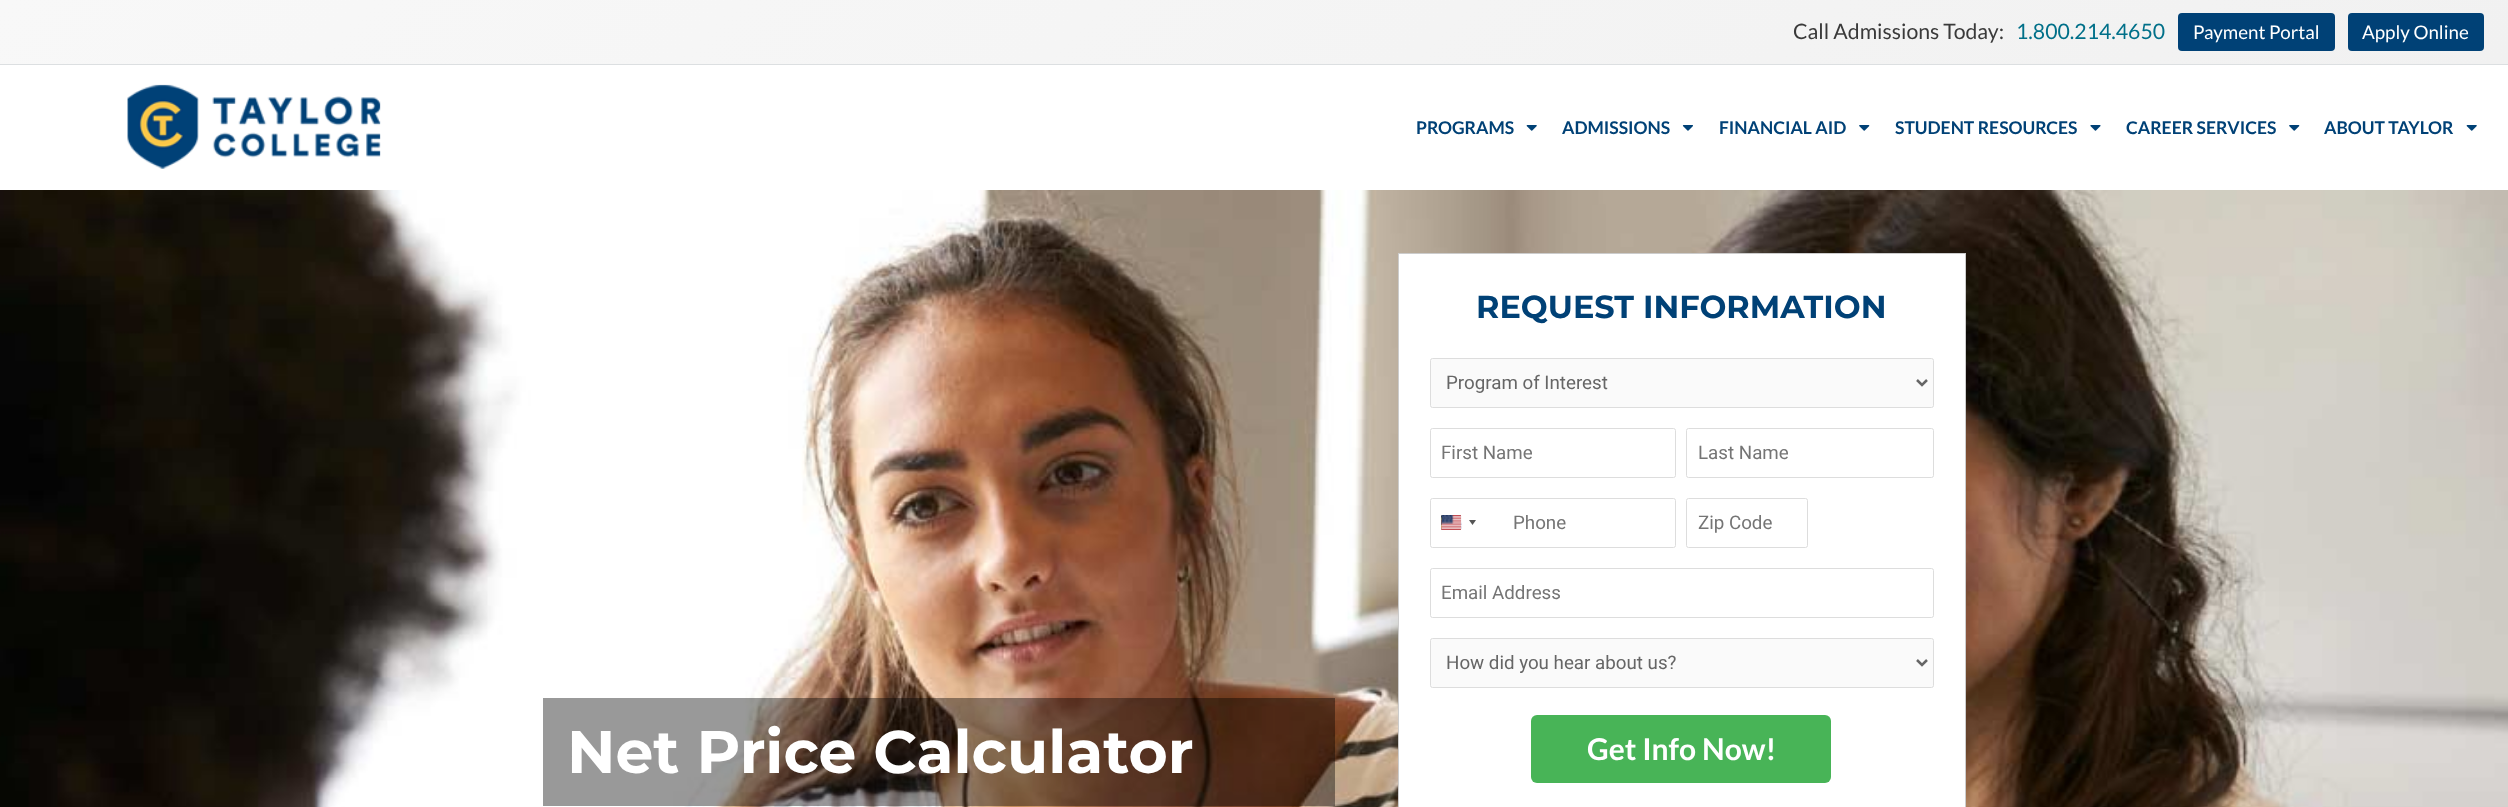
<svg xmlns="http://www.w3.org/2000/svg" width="2508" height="807">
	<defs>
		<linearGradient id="g1" gradientUnits="userSpaceOnUse" x1="611" y1="-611" x2="1898" y2="675"><stop offset="0" stop-color="#F8F8F8" /><stop offset="1" stop-color="#F1F1F1" /></linearGradient>
	</defs>
	<rect width="100%" height="100%" fill="#FFFFFF" />
	<rect x="0" y="0" width="2508" height="64" fill="url(#g1)" />
	<rect x="0" y="64" width="2508" height="1" fill="#DCDFE1" />
	<text x="1793" y="39" font-family="Lato" font-size="21.25" fill="#3A3A3A">Call Admissions Today:</text>
	<text x="2016" y="39" font-family="Lato" font-size="21.25" fill="#017089">1.800.214.4650</text>
	<rect x="2178" y="13" width="157" height="38" rx="4" fill="#004176" />
	<text x="2193" y="39" font-family="Lato" font-size="18.75" fill="#FFFFFF">Payment Portal</text>
	<rect x="2348" y="13" width="136" height="38" rx="4" fill="#004176" />
	<text x="2362" y="39" font-family="Lato" font-size="18.75" fill="#FFFFFF">Apply Online</text>
	<image x="127" y="84" width="254" height="85" href="assets/img1.png" />
	<text x="1416" y="134" font-family="Lato" font-size="17.5" font-weight="700" fill="#004176">PROGRAMS</text>
	<image x="1526" y="125" width="11" height="6" href="assets/img2.png" />
	<text x="1562" y="134" font-family="Lato" font-size="17.5" font-weight="700" fill="#004176">ADMISSIONS</text>
	<image x="1682" y="125" width="11" height="6" href="assets/img3.png" />
	<text x="1719" y="134" font-family="Lato" font-size="17.5" font-weight="700" fill="#004176">FINANCIAL AID</text>
	<image x="1859" y="125" width="11" height="6" href="assets/img4.png" />
	<text x="1895" y="134" font-family="Lato" font-size="17.5" font-weight="700" fill="#004176">STUDENT RESOURCES</text>
	<image x="2090" y="125" width="11" height="6" href="assets/img5.png" />
	<text x="2126" y="134" font-family="Lato" font-size="17.5" font-weight="700" fill="#004176">CAREER SERVICES</text>
	<image x="2289" y="125" width="11" height="6" href="assets/img4.png" />
	<text x="2324" y="134" font-family="Lato" font-size="17.5" font-weight="700" fill="#004176">ABOUT TAYLOR</text>
	<image x="2466" y="125" width="11" height="6" href="assets/img2.png" />
	<image x="0" y="190" width="2508" height="617" href="assets/img6.png" />
	<rect x="543" y="698" width="792" height="108" fill="#000000" fill-opacity="0.4" />
	<text x="567" y="773" font-family="Montserrat" font-size="60" font-weight="700" fill="#FFFFFF">Net Price Calculator</text>
	<rect x="1399" y="254" width="566" height="553" fill="#FFFFFF" />
	<rect x="1398" y="253" width="568" height="1" fill="#CCCCCC" />
	<rect x="1965" y="253" width="1" height="554" fill="#CCCCCC" />
	<rect x="1398" y="253" width="1" height="554" fill="#CCCCCC" />
	<text x="1476" y="318" font-family="Montserrat" font-size="31.9" font-weight="700" fill="#004176">REQUEST INFORMATION</text>
	<rect x="1430.5" y="358.5" width="503" height="49" rx="2" fill="#FAFAFA" stroke="#DDDDDD" />
	<path d="M1917 380L1922 385L1927 380" fill="none" stroke="#666666" stroke-width="2.5" />
	<text x="1446" y="389" font-family="Roboto" font-size="18.75" fill="#666666">Program of Interest</text>
	<rect x="1430.5" y="428.5" width="245" height="49" rx="2" fill="none" stroke="#DDDDDD" />
	<text x="1441" y="459" font-family="Roboto" font-size="18.75" fill="#757575">First Name</text>
	<rect x="1686.5" y="428.5" width="247" height="49" rx="2" fill="none" stroke="#DDDDDD" />
	<text x="1698" y="459" font-family="Roboto" font-size="18.75" fill="#757575">Last Name</text>
	<rect x="1430.5" y="498.5" width="245" height="49" rx="2" fill="none" stroke="#DDDDDD" />
	<rect x="1441" y="515" width="20" height="15" rx="1" fill="#888888" filter="blur(0.5px)" />
	<image x="1441" y="515" width="21" height="15" href="assets/img7.png" />
	<path d="M1469 520H1476L1472.5 525Z" fill="#555555" />
	<text x="1513" y="529" font-family="Roboto" font-size="18.75" fill="#757575">Phone</text>
	<rect x="1686.5" y="498.5" width="121" height="49" rx="2" fill="none" stroke="#DDDDDD" />
	<text x="1698" y="529" font-family="Roboto" font-size="18.75" fill="#757575">Zip Code</text>
	<rect x="1430.5" y="568.5" width="503" height="49" rx="2" fill="none" stroke="#DDDDDD" />
	<text x="1441" y="599" font-family="Roboto" font-size="18.75" fill="#757575">Email Address</text>
	<rect x="1430.5" y="638.5" width="503" height="49" rx="2" fill="#FAFAFA" stroke="#DDDDDD" />
	<path d="M1917 660L1922 665L1927 660" fill="none" stroke="#666666" stroke-width="2.5" />
	<text x="1446" y="669" font-family="Roboto" font-size="18.75" fill="#666666">How did you hear about us?</text>
	<rect x="1531" y="715" width="300" height="68" rx="6" fill="#48B457" />
	<text x="1587" y="760" font-family="Lato" font-size="30" font-weight="700" fill="#FFFFFF">Get Info Now!</text>
</svg>
